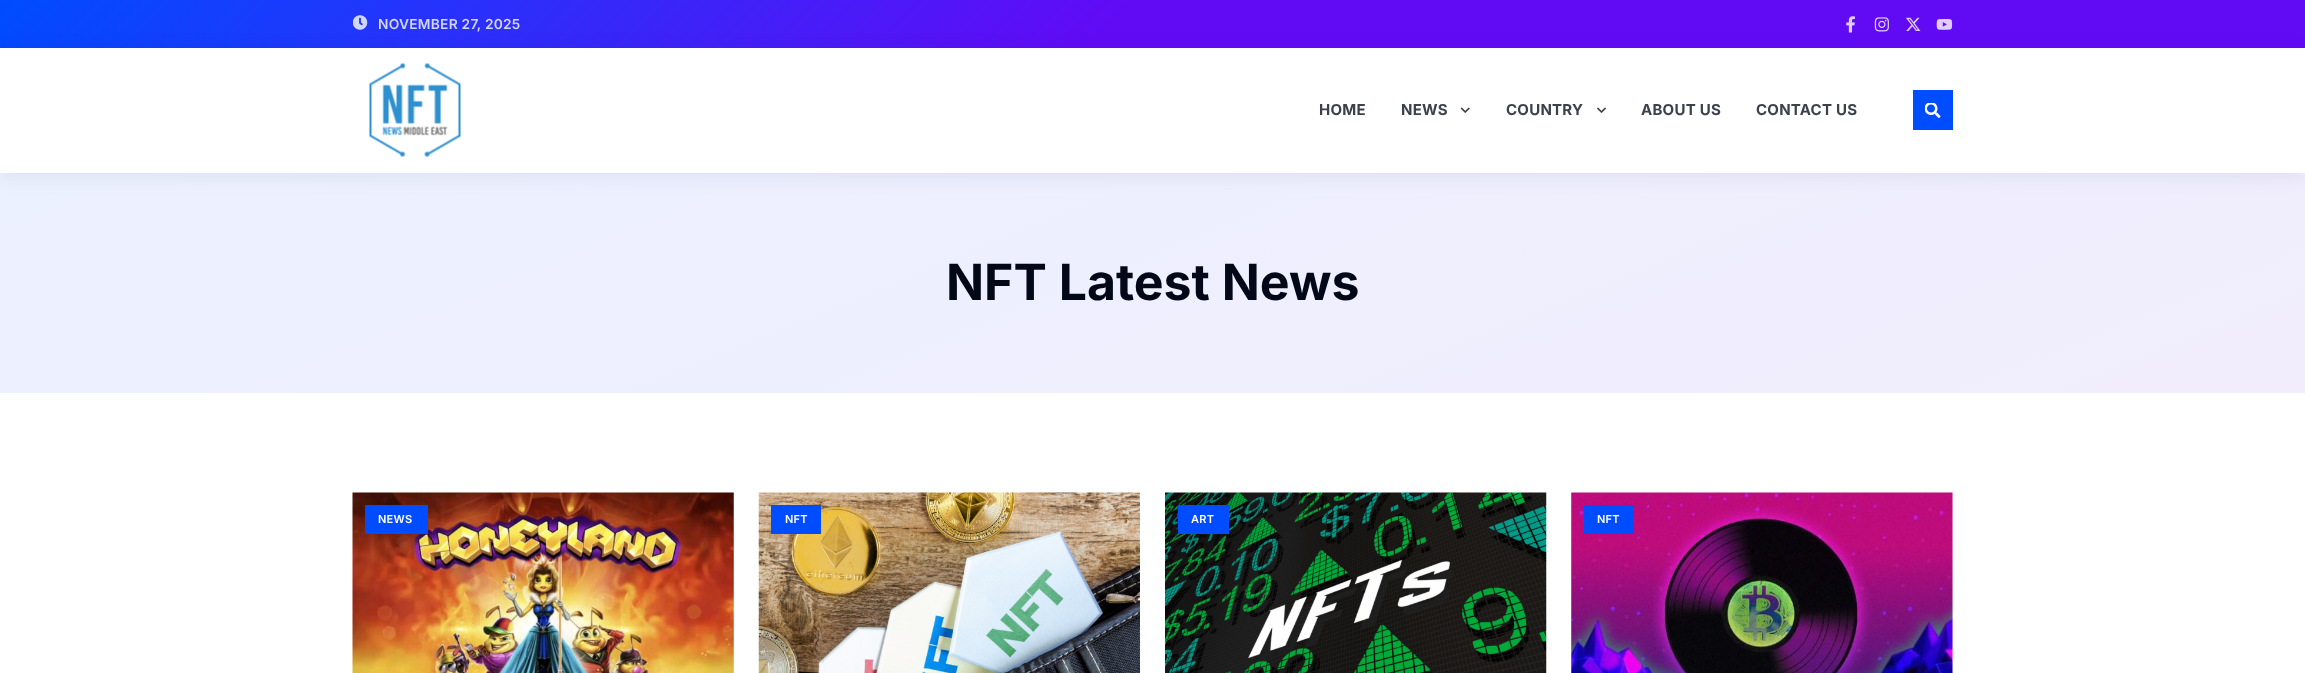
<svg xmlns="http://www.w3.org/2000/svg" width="2305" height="673">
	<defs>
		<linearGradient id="g1" gradientUnits="userSpaceOnUse" x1="564" y1="-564" x2="1741" y2="612"><stop offset="0" stop-color="#004CFF" /><stop offset="0.48" stop-color="#610BF5" /></linearGradient>
		<linearGradient id="g2" gradientUnits="userSpaceOnUse" x1="953" y1="-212" x2="1352" y2="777"><stop offset="0" stop-color="#ECF1FF" /><stop offset="1" stop-color="#F1EDFD" /></linearGradient>
	</defs>
	<rect width="100%" height="100%" fill="#FFFFFF" />
	<rect x="0" y="0" width="2305" height="48" fill="url(#g1)" />
	<image x="353" y="15" width="15" height="15" href="assets/img1.png" />
	<text x="378" y="29" font-family="Inter" font-size="13.75" font-weight="600" letter-spacing="0.25" fill="#D4D6FE">NOVEMBER 27, 2025</text>
	<image x="1846" y="16" width="9" height="17" href="assets/img2.png" />
	<image x="1874" y="17" width="15" height="15" href="assets/img3.png" />
	<image x="1906" y="17" width="15" height="14" href="assets/img4.png" />
	<image x="1936" y="18" width="17" height="12" href="assets/img5.png" />
	<rect x="0" y="173" width="2305" height="220" fill="url(#g2)" />
	<rect x="0" y="51" width="2305" height="125" fill="#0F183F" fill-opacity="0.08" filter="blur(10px)" />
	<rect x="0" y="48" width="2305" height="125" fill="#FFFFFF" />
	<image x="369" y="63" width="92" height="94" href="assets/img6.png" />
	<g font-family="Inter" font-size="15" font-weight="700" letter-spacing="0.25" fill="#3C414C">
		<text x="1319" y="115">HOME</text>
		<text x="1401" y="115">NEWS</text>
	</g>
	<image x="1460" y="107" width="10" height="6" href="assets/img7.png" />
	<text x="1506" y="115" font-family="Inter" font-size="15" font-weight="700" letter-spacing="0.25" fill="#3C414C">COUNTRY</text>
	<image x="1597" y="107" width="9" height="6" href="assets/img8.png" />
	<g font-family="Inter" font-size="15" font-weight="700" letter-spacing="0.25" fill="#3C414C">
		<text x="1641" y="115">ABOUT US</text>
		<text x="1756" y="115">CONTACT US</text>
	</g>
	<rect x="1913" y="90" width="40" height="40" fill="#004CFF" />
	<image x="1925" y="103" width="16" height="15" href="assets/img9.png" />
	<text x="946" y="300" font-family="Inter" font-size="50" font-weight="700" fill="#020817">NFT Latest News</text>
	<image x="352" y="492" width="382" height="181" href="assets/img10.png" />
	<rect x="365" y="505" width="63" height="29" fill="#004CFF" />
	<text x="378" y="523" font-family="Inter" font-size="11" font-weight="600" letter-spacing="0.25" fill="#FFFFFF">NEWS</text>
	<image x="758" y="492" width="382" height="181" href="assets/img11.png" />
	<rect x="771" y="505" width="50" height="29" fill="#004CFF" />
	<text x="785" y="523" font-family="Inter" font-size="11" font-weight="600" letter-spacing="0.25" fill="#FFFFFF">NFT</text>
	<image x="1165" y="492" width="382" height="181" href="assets/img12.png" />
	<rect x="1178" y="505" width="51" height="29" fill="#004CFF" />
	<text x="1191" y="523" font-family="Inter" font-size="11" font-weight="600" letter-spacing="0.25" fill="#FFFFFF">ART</text>
	<rect x="1571" y="493" width="382" height="180" fill="#ECF1FF" />
	<image x="1571" y="492" width="382" height="181" href="assets/img13.png" />
	<rect x="1584" y="505" width="50" height="29" fill="#004CFF" />
	<text x="1597" y="523" font-family="Inter" font-size="11" font-weight="600" letter-spacing="0.25" fill="#FFFFFF">NFT</text>
</svg>
